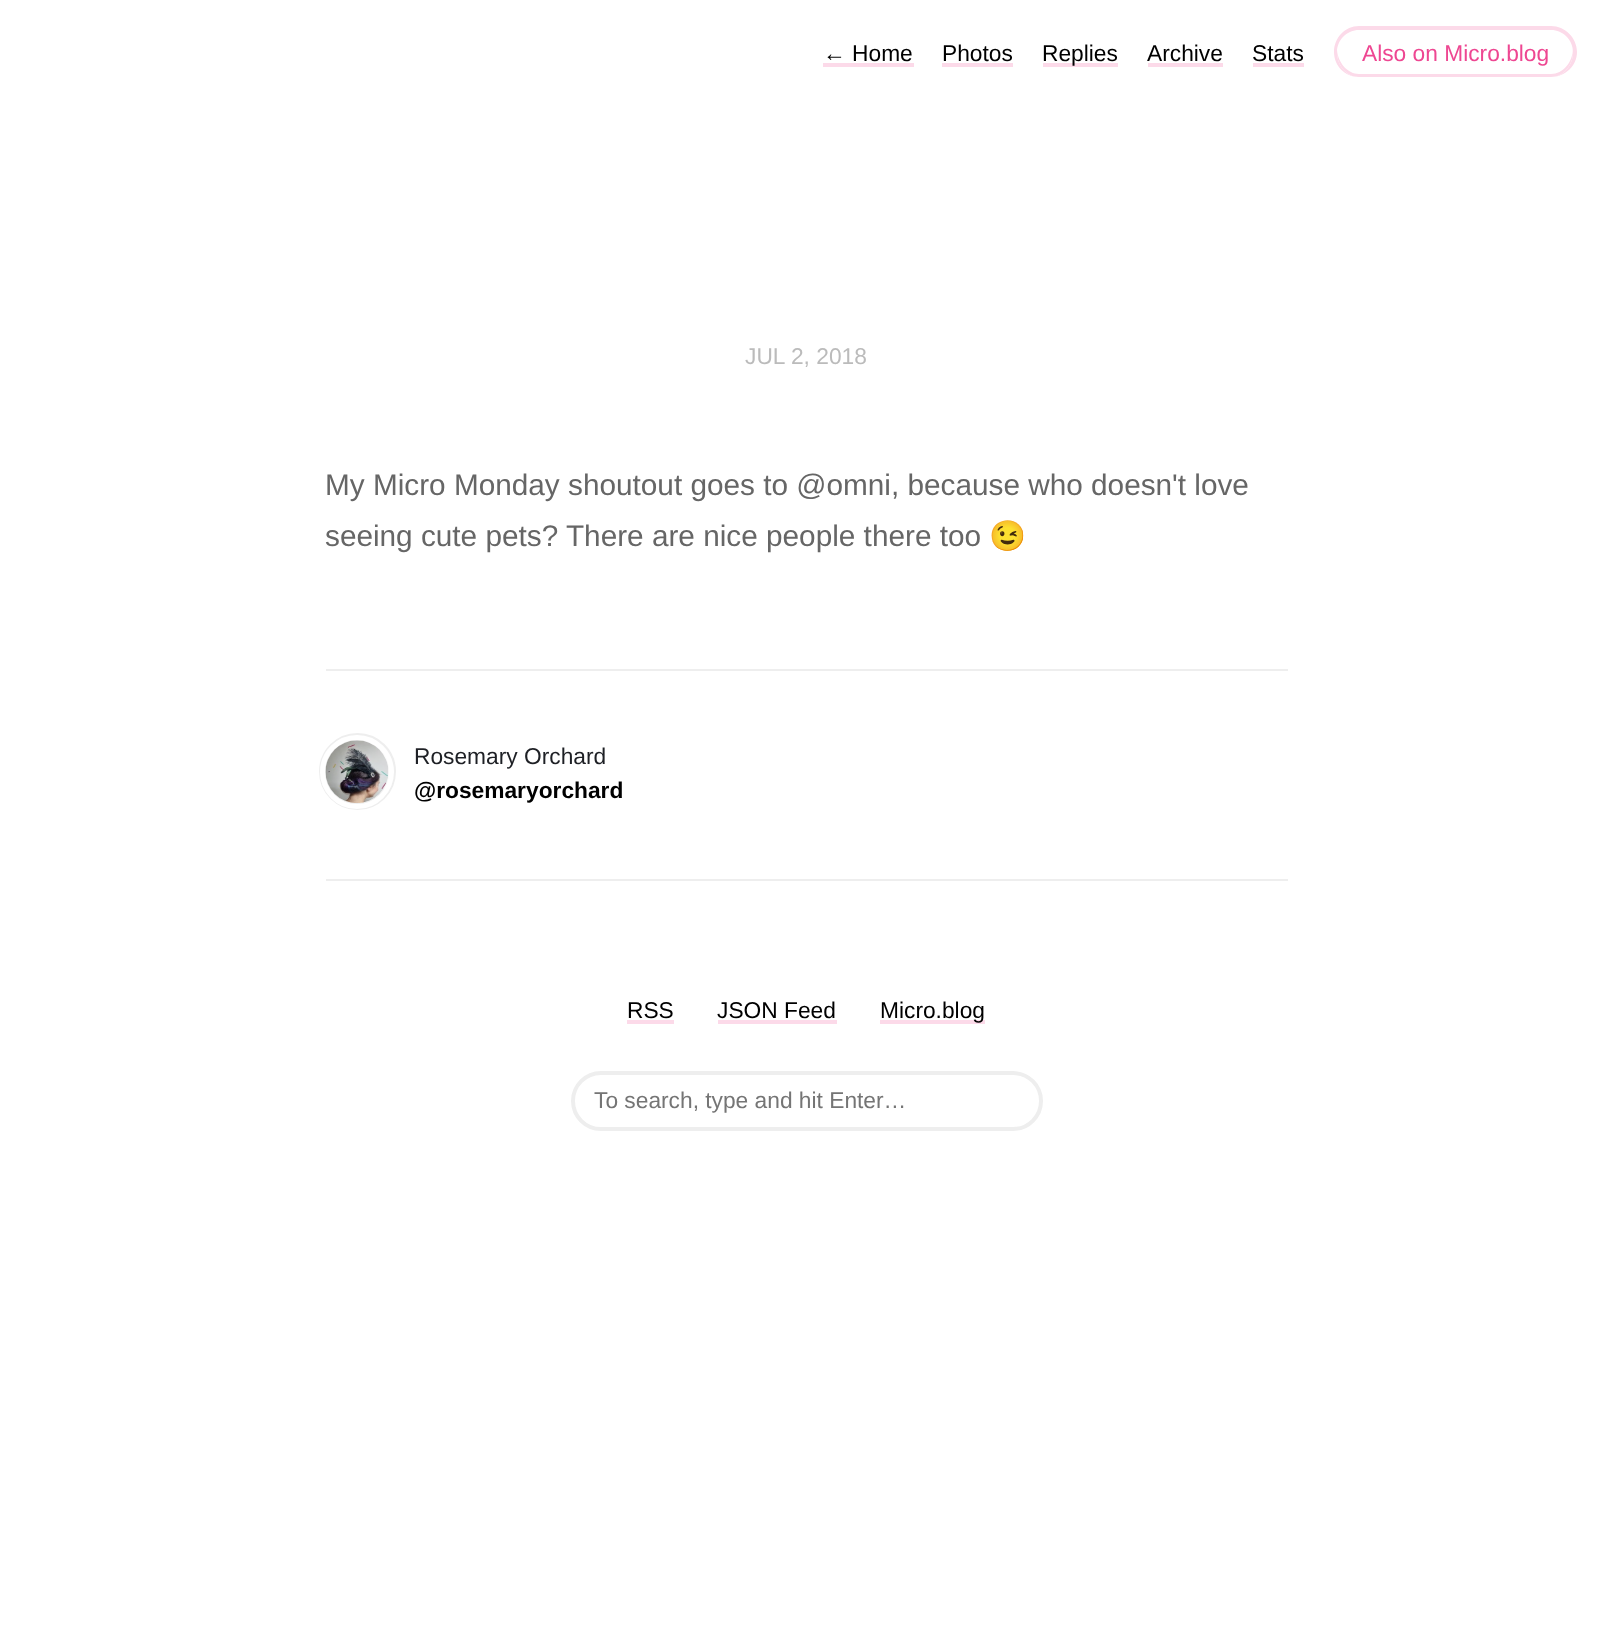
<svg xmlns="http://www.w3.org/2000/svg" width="1611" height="1638">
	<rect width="100%" height="100%" fill="#FFFFFF" />
	<text x="823" y="61" font-family="Liberation Sans" font-size="22.75" fill="#000000">← Home</text>
	<rect x="823" y="63" width="91" height="4" fill="#FCDAE9" />
	<text x="942" y="61" font-family="Liberation Sans" font-size="22.75" fill="#000000">Photos</text>
	<rect x="942" y="63" width="71" height="4" fill="#FCDAE9" />
	<rect x="1043" y="63" width="75" height="4" fill="#FCDAE9" />
	<g font-family="Liberation Sans" font-size="22.75" fill="#000000">
		<text x="1042" y="61">Replies</text>
		<text x="1147" y="61">Archive</text>
	</g>
	<rect x="1148" y="63" width="75" height="4" fill="#FCDAE9" />
	<text x="1252" y="61" font-family="Liberation Sans" font-size="22.75" fill="#000000">Stats</text>
	<rect x="1253" y="63" width="51" height="4" fill="#FCDAE9" />
	<path d="M1337 50V52C1337 66 1347 77 1359 77H1551C1563 77 1573 66 1573 52V48C1573 62 1563 74 1551 74H1359C1348 74 1338 63 1337 50Z" fill="#FCDAE9" />
	<path d="M1359 26H1551C1565 26 1577 38 1577 52C1577 66 1565 77 1551 77H1359C1345 77 1334 66 1334 52C1334 38 1345 26 1359 26ZM1359 30H1551C1563 30 1573 40 1573 52C1573 66 1563 77 1551 77H1359C1347 77 1337 66 1337 52C1337 40 1347 30 1359 30Z" fill="#FCDAE9" fill-rule="evenodd" />
	<text x="1362" y="61" font-family="Liberation Sans" font-size="22.75" fill="#EE4792">Also on Micro.blog</text>
	<text x="745" y="364" font-family="Liberation Sans" font-size="22.75" fill="#BBBBBB">JUL 2, 2018</text>
	<g font-family="Liberation Sans" font-size="29.75" fill="#666666">
		<text x="325" y="495">My Micro Monday shoutout goes to @omni, because who doesn't love</text>
		<text x="325" y="546">seeing cute pets? There are nice people there too</text>
	</g>
	<text x="989" y="546" font-family="Noto Color Emoji" font-size="29.75" fill="#666666">😉</text>
	<rect x="326" y="669" width="962" height="2" fill="#EEEEEE" />
	<rect x="326" y="879" width="962" height="2" fill="#EEEEEE" />
	<circle cx="357.5" cy="771.5" r="35" fill="none" stroke="#EEEEEE" stroke-width="7" />
	<circle cx="357" cy="772" r="34.5" fill="none" stroke="#FFFFFF" stroke-width="5" />
	<image x="325" y="740" width="64" height="63" href="assets/img1.png" />
	<text x="414" y="764" font-family="Liberation Sans" font-size="22.75" fill="#1E2025">Rosemary Orchard</text>
	<text x="414" y="798" font-family="Liberation Sans" font-size="22.75" font-weight="700" fill="#000000">@rosemaryorchard</text>
	<text x="627" y="1018" font-family="Liberation Sans" font-size="22.75" fill="#000000">RSS</text>
	<rect x="627" y="1020" width="47" height="4" fill="#FCDAE9" />
	<text x="717" y="1018" font-family="Liberation Sans" font-size="22.75" fill="#000000">JSON Feed</text>
	<rect x="718" y="1020" width="119" height="4" fill="#FCDAE9" />
	<rect x="880" y="1020" width="105" height="4" fill="#FCDAE9" />
	<text x="880" y="1018" font-family="Liberation Sans" font-size="22.75" fill="#000000">Micro.blog</text>
	<rect x="573" y="1073" width="468" height="56" rx="28" fill="none" stroke="#EEEEEE" stroke-width="4" />
	<text x="594" y="1108" font-family="Liberation Sans" font-size="22.75" fill="#757575">To search, type and hit Enter…</text>
</svg>
